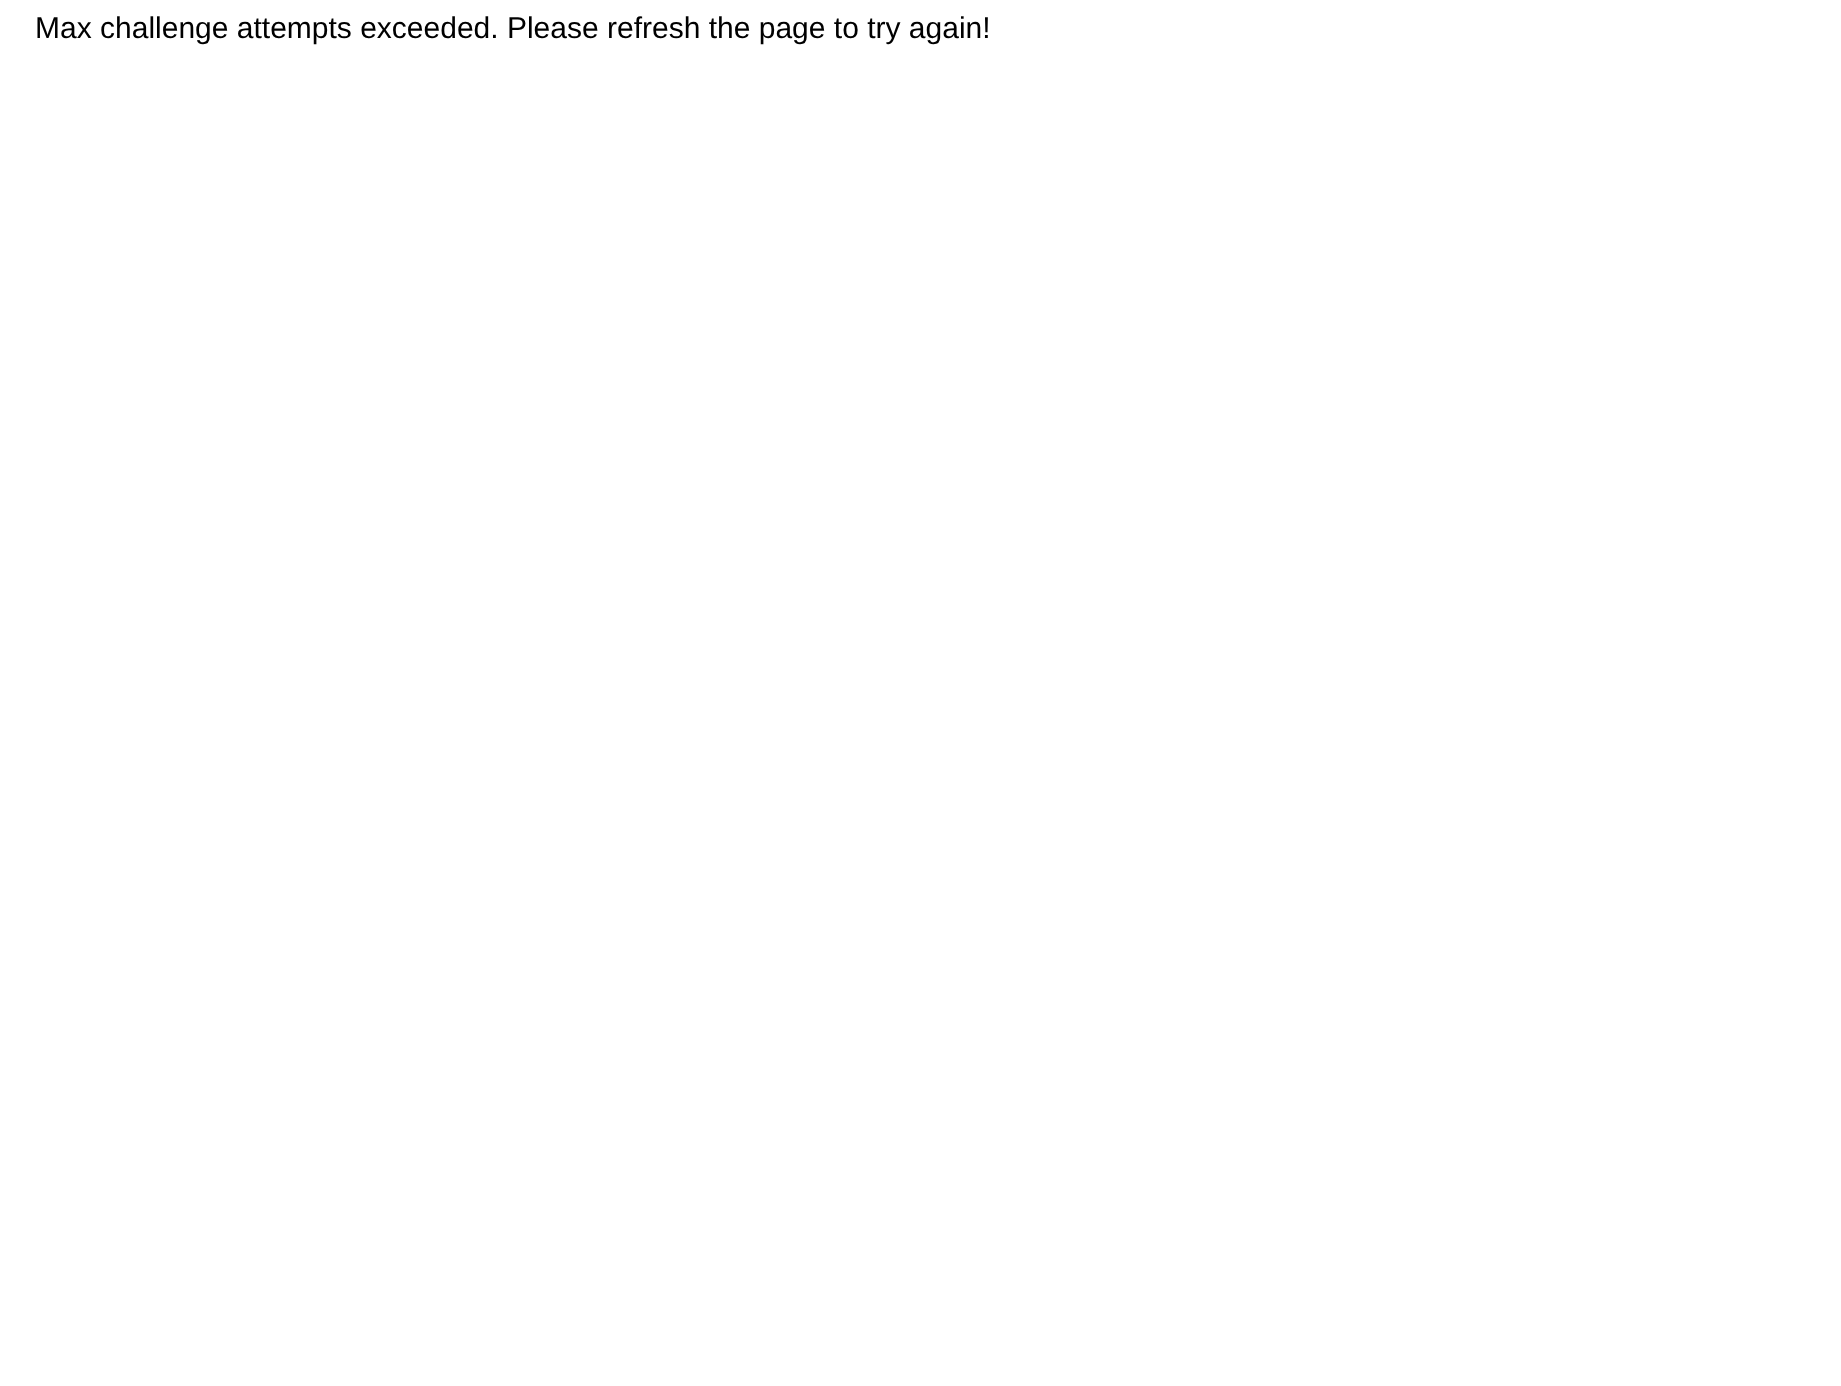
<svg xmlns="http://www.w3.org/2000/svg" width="1841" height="1386">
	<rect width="100%" height="100%" fill="#FFFFFF" />
	<text x="35" y="38" font-family="Liberation Sans" font-size="30" fill="#000000">Max challenge attempts exceeded. Please refresh the page to try again!</text>
</svg>
